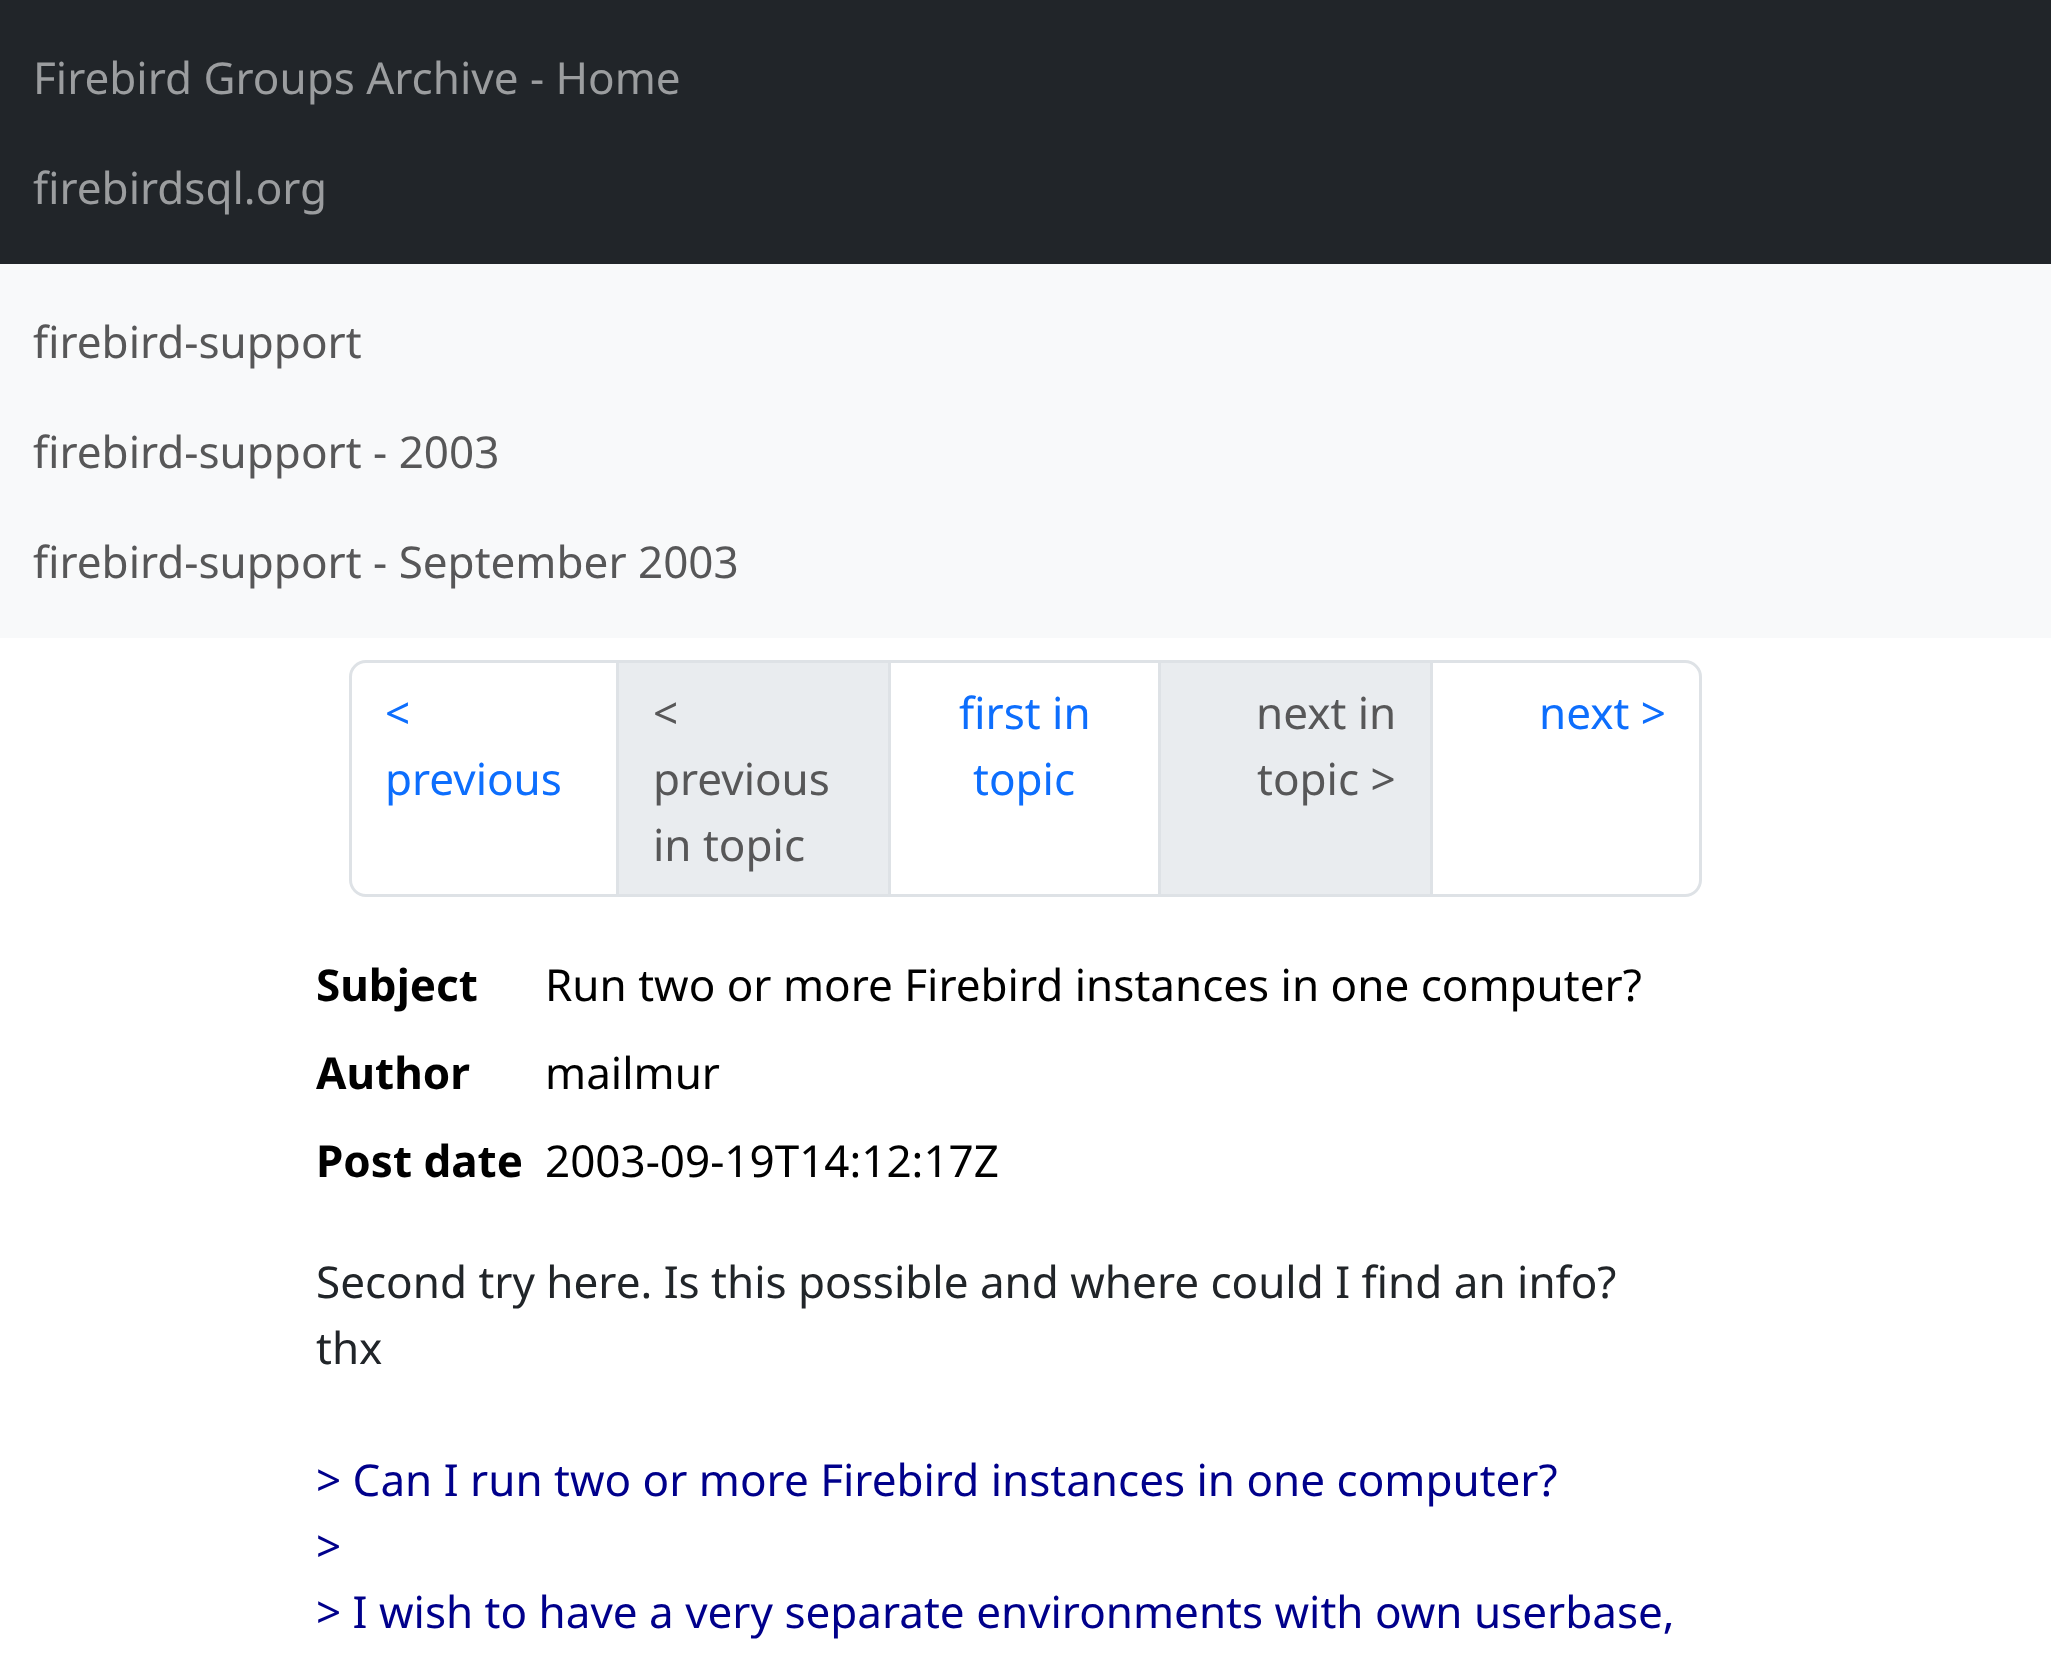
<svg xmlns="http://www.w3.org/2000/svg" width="2051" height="1669">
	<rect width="100%" height="100%" fill="#FFFFFF" />
	<rect x="0" y="0" width="2051" height="264" fill="#212529" />
	<g font-family="Noto Sans" font-size="44" fill="#9B9D9F">
		<text x="33" y="94">Firebird Groups Archive - Home</text>
		<text x="33" y="204">firebirdsql.org</text>
	</g>
	<rect x="0" y="264" width="2051" height="374" fill="#F8F9FA" />
	<g font-family="Noto Sans" font-size="44" fill="#575758">
		<text x="33" y="358">firebird-support</text>
		<text x="33" y="468">firebird-support - 2003</text>
		<text x="33" y="578">firebird-support - September 2003</text>
	</g>
	<path d="M366 661.5H617.5V895.5H366C357.5 895.5 350.5 888.5 350.5 880V677C350.5 668.5 357.5 661.5 366 661.5Z" fill="none" stroke="#DEE2E6" stroke-width="3" />
	<g font-family="Noto Sans" font-size="44" fill="#0D6EFD">
		<text x="385" y="729">&lt;</text>
		<text x="385" y="795">previous</text>
	</g>
	<rect x="617.5" y="661.5" width="272" height="234" fill="#E9ECEF" stroke="#DEE2E6" stroke-width="3" />
	<g font-family="Noto Sans" font-size="44" fill="#575758">
		<text x="653" y="729">&lt;</text>
		<text x="653" y="795">previous</text>
		<text x="653" y="861">in topic</text>
	</g>
	<rect x="889.5" y="661.5" width="270" height="234" fill="none" stroke="#DEE2E6" stroke-width="3" />
	<g font-family="Noto Sans" font-size="44" fill="#0D6EFD">
		<text x="959" y="729">first in</text>
		<text x="973" y="795">topic</text>
	</g>
	<rect x="1159.5" y="661.5" width="272" height="234" fill="#E9ECEF" stroke="#DEE2E6" stroke-width="3" />
	<g font-family="Noto Sans" font-size="44" fill="#575758">
		<text x="1256" y="729">next in</text>
		<text x="1257" y="795">topic &gt;</text>
	</g>
	<path d="M1431.5 661.5H1685C1693.5 661.5 1700.5 668.5 1700.5 677V880C1700.5 888.5 1693.5 895.5 1685 895.5H1431.5Z" fill="#FFFFFF" stroke="#DEE2E6" stroke-width="3" />
	<text x="1539" y="729" font-family="Noto Sans" font-size="44" fill="#0D6EFD">next &gt;</text>
	<text x="316" y="1001" font-family="Noto Sans" font-size="44" font-weight="700" fill="#000000">Subject</text>
	<text x="545" y="1001" font-family="Noto Sans" font-size="44" fill="#000000">Run two or more Firebird instances in one computer?</text>
	<text x="316" y="1089" font-family="Noto Sans" font-size="44" font-weight="700" fill="#000000">Author</text>
	<text x="545" y="1089" font-family="Noto Sans" font-size="44" fill="#000000">mailmur</text>
	<text x="316" y="1177" font-family="Noto Sans" font-size="44" font-weight="700" fill="#000000">Post date</text>
	<text x="545" y="1177" font-family="Noto Sans" font-size="44" fill="#000000">2003-09-19T14:12:17Z</text>
	<g font-family="Noto Sans" font-size="44" fill="#212529">
		<text x="316" y="1298">Second try here. Is this possible and where could I find an info?</text>
		<text x="316" y="1364">thx</text>
	</g>
	<g font-family="Noto Sans" font-size="44" fill="#00008B">
		<text x="316" y="1496">&gt; Can I run two or more Firebird instances in one computer?</text>
		<text x="316" y="1562">&gt;</text>
		<text x="316" y="1628">&gt; I wish to have a very separate environments with own userbase,</text>
	</g>
</svg>
